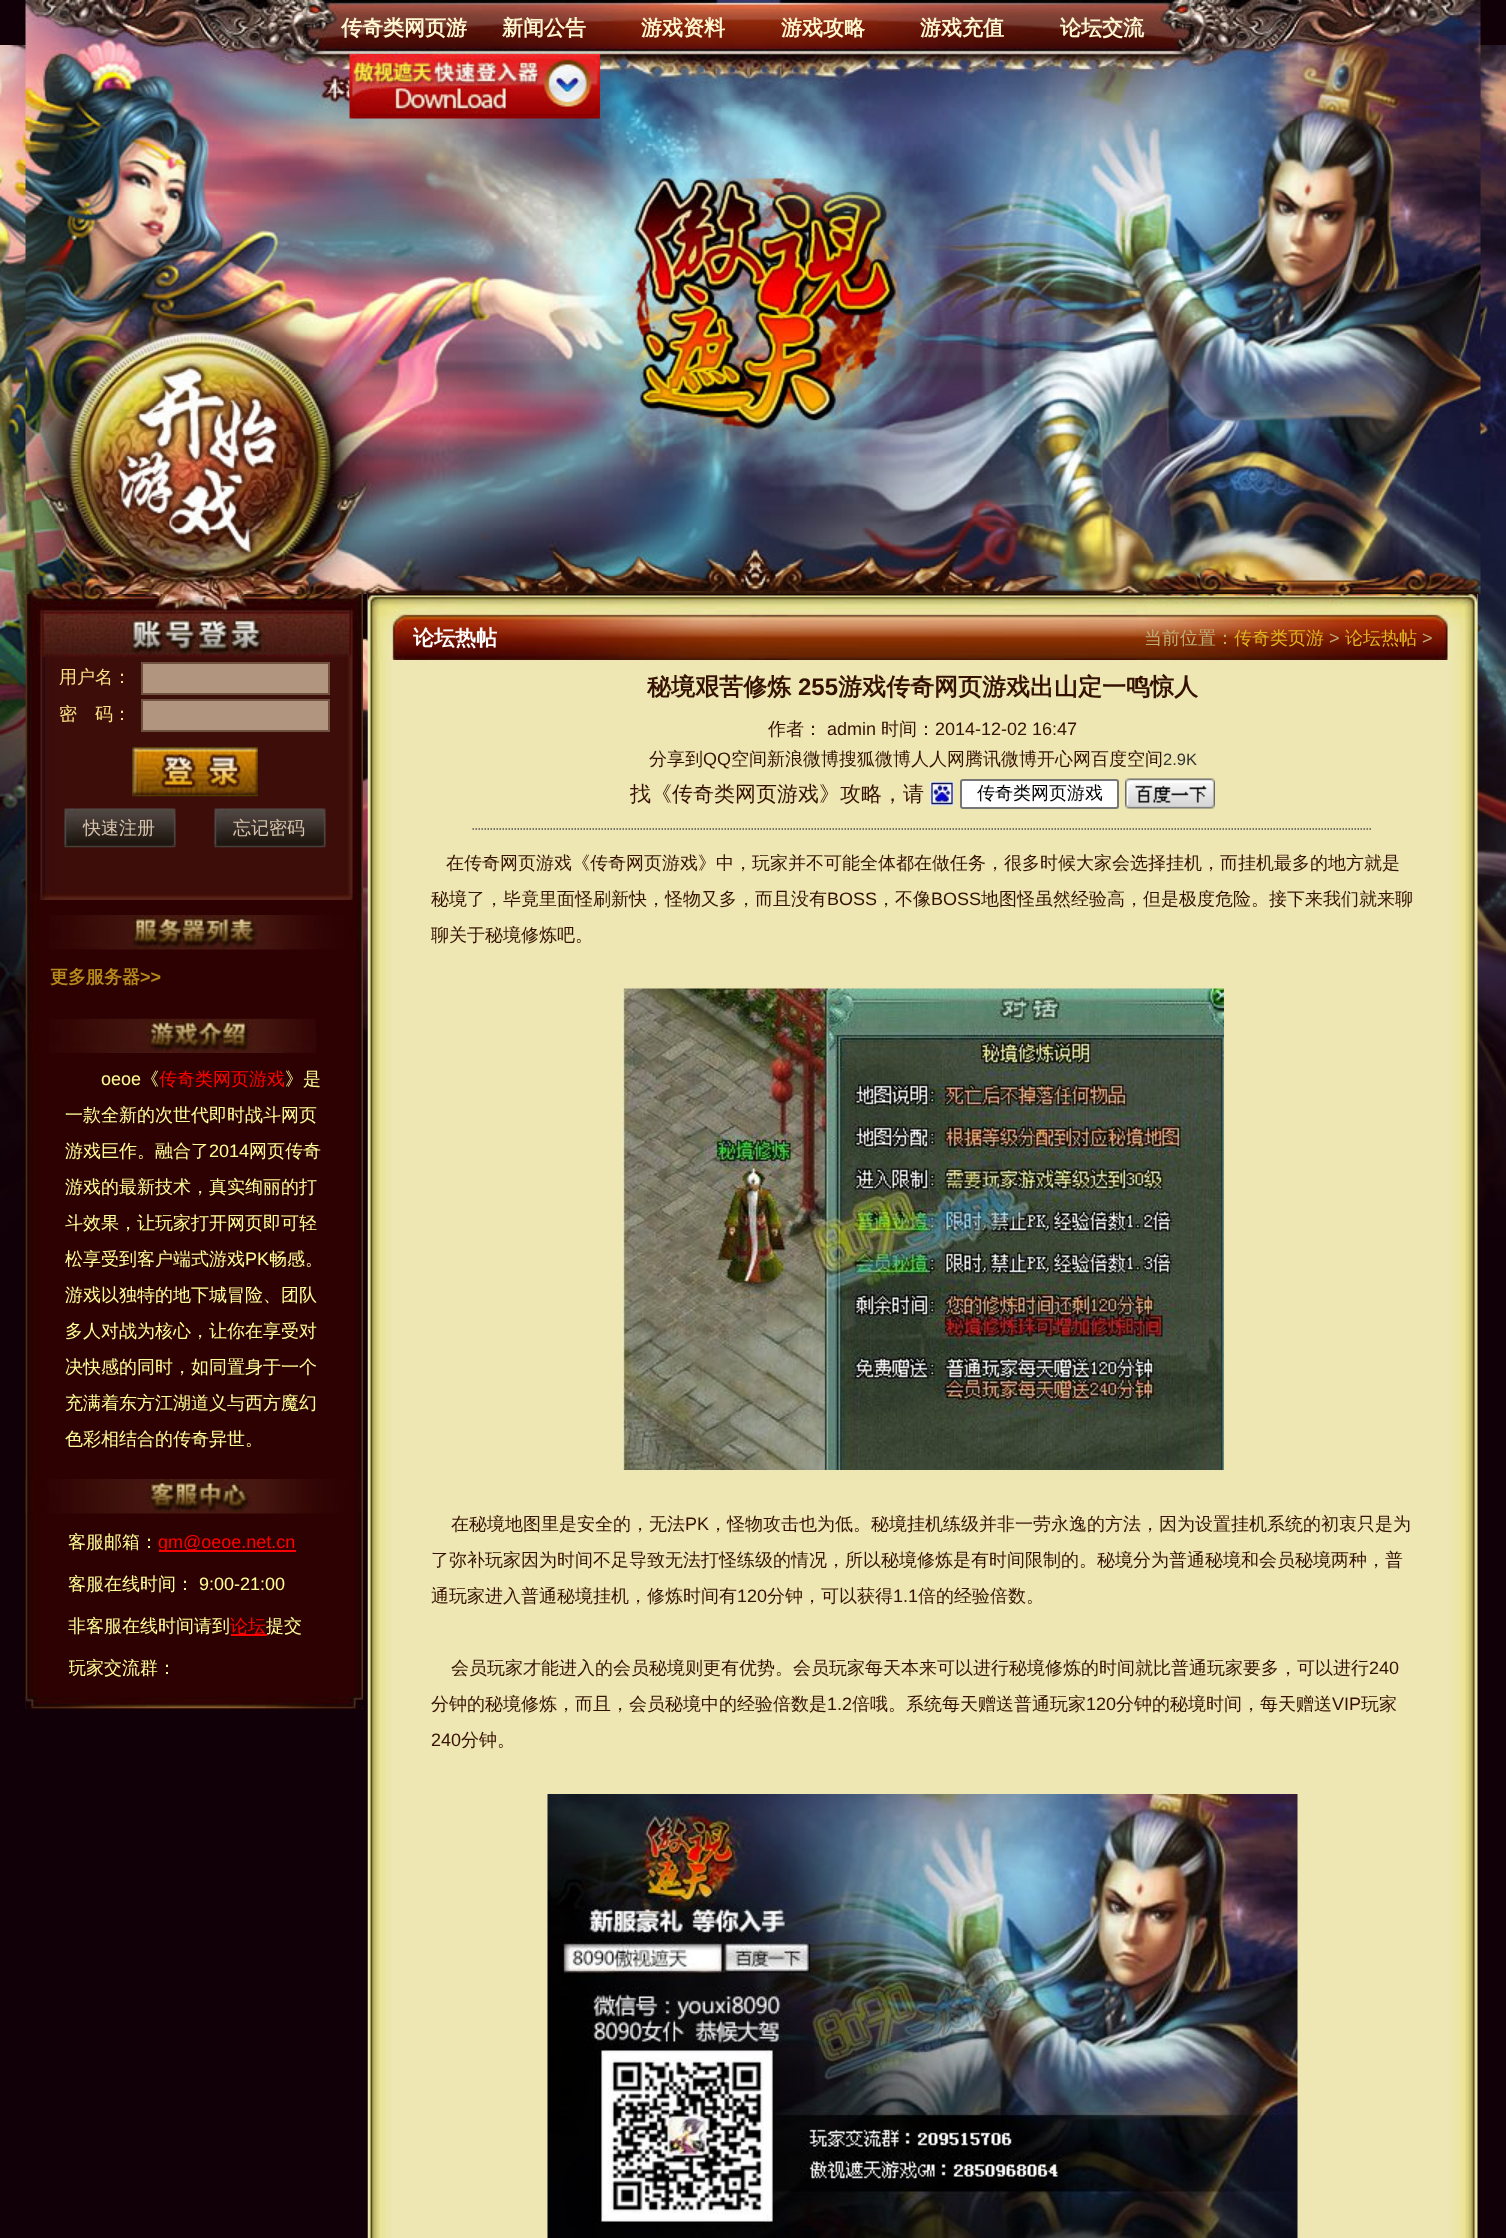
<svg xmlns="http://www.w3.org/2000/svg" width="1506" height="2238">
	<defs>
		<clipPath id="clip1"><rect x="69" y="1647" width="252" height="42" /></clipPath>
		<clipPath id="clip2"><rect x="431" y="845" width="984" height="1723" /></clipPath>
	</defs>
	<rect width="100%" height="100%" fill="#110007" />
	<image x="0" y="45" width="1506" height="1191" href="assets/img1.png" />
	<image x="25" y="0" width="1456" height="594" href="assets/img2.png" />
	<g font-family="WenQuanYi Zen Hei" font-size="21" font-weight="700" fill="#FFF7CF">
		<text x="341" y="35">传奇类网页游</text>
		<text x="502" y="35">新闻公告</text>
		<text x="641" y="35">游戏资料</text>
		<text x="781" y="35">游戏攻略</text>
		<text x="920" y="35">游戏充值</text>
		<text x="1060" y="35">论坛交流</text>
	</g>
	<image x="349" y="54" width="251" height="65" href="assets/img3.png" />
	<image x="25" y="594" width="338" height="1115" href="assets/img4.png" />
	<image x="25" y="594" width="328" height="306" href="assets/img5.png" />
	<image x="25" y="594" width="338" height="63" href="assets/img6.png" />
	<text x="59" y="683" font-family="WenQuanYi Zen Hei" font-size="18" font-weight="500" fill="#FBE187">用户名：</text>
	<rect x="142" y="663" width="187" height="31" fill="#B1957E" stroke="#705140" stroke-width="2" />
	<text x="59" y="720" font-family="WenQuanYi Zen Hei" font-size="18" font-weight="500" fill="#FBE187">密　码：</text>
	<rect x="142" y="700" width="187" height="31" fill="#B1957E" stroke="#705140" stroke-width="2" />
	<image x="132" y="747" width="126" height="50" href="assets/img7.png" />
	<image x="64" y="808" width="112" height="40" href="assets/img8.png" />
	<text x="83" y="834" font-family="WenQuanYi Zen Hei" font-size="18" font-weight="500" fill="#D7C2AB">快速注册</text>
	<image x="214" y="808" width="112" height="40" href="assets/img8.png" />
	<text x="233" y="834" font-family="WenQuanYi Zen Hei" font-size="18" font-weight="500" fill="#D7C2AB">忘记密码</text>
	<image x="25" y="894" width="336" height="6" href="assets/img9.png" />
	<image x="25" y="915" width="338" height="35" href="assets/img10.png" />
	<text x="50" y="983" font-family="WenQuanYi Zen Hei" font-size="18" font-weight="700" fill="#B58A1D">更多服务器</text>
	<text x="140" y="983" font-family="Liberation Sans" font-size="18" font-weight="700" fill="#B58A1D">&gt;&gt;</text>
	<image x="25" y="1018" width="291" height="35" href="assets/img11.png" />
	<text x="101" y="1085" font-family="Liberation Sans" font-size="18" fill="#FFFF97">oeoe</text>
	<text x="141" y="1085" font-family="WenQuanYi Zen Hei" font-size="18" font-weight="500" fill="#FFFF97">《</text>
	<text x="159" y="1085" font-family="WenQuanYi Zen Hei" font-size="18" font-weight="500" fill="#FF0000">传奇类网页游戏</text>
	<g font-family="WenQuanYi Zen Hei" font-size="18" font-weight="500" fill="#FFFF97">
		<text x="285" y="1085">》是</text>
		<text x="65" y="1121">一款全新的次世代即时战斗网页</text>
		<text x="65" y="1157">游戏巨作。融合了</text>
	</g>
	<text x="209" y="1157" font-family="Liberation Sans" font-size="18" fill="#FFFF97">2014</text>
	<g font-family="WenQuanYi Zen Hei" font-size="18" font-weight="500" fill="#FFFF97">
		<text x="249" y="1157">网页传奇</text>
		<text x="65" y="1193">游戏的最新技术，真实绚丽的打</text>
		<text x="65" y="1229">斗效果，让玩家打开网页即可轻</text>
		<text x="65" y="1265">松享受到客户端式游戏</text>
	</g>
	<text x="245" y="1265" font-family="Liberation Sans" font-size="18" fill="#FFFF97">PK</text>
	<g font-family="WenQuanYi Zen Hei" font-size="18" font-weight="500" fill="#FFFF97">
		<text x="269" y="1265">畅感。</text>
		<text x="65" y="1301">游戏以独特的地下城冒险、团队</text>
		<text x="65" y="1337">多人对战为核心，让你在享受对</text>
		<text x="65" y="1373">决快感的同时，如同置身于一个</text>
		<text x="65" y="1409">充满着东方江湖道义与西方魔幻</text>
		<text x="65" y="1445">色彩相结合的传奇异世。</text>
	</g>
	<image x="25" y="1479" width="336" height="35" href="assets/img12.png" />
	<text x="68" y="1548" font-family="WenQuanYi Zen Hei" font-size="18" font-weight="500" fill="#FFFF97">客服邮箱：</text>
	<rect x="159" y="1550" width="137" height="2" fill="#FF0000" />
	<text x="158" y="1548" font-family="Liberation Sans" font-size="18" fill="#FF0000">gm@oeoe.net.cn</text>
	<text x="68" y="1590" font-family="WenQuanYi Zen Hei" font-size="18" font-weight="500" fill="#FFFF97">客服在线时间：</text>
	<text x="199" y="1590" font-family="Liberation Sans" font-size="18" fill="#FFFF97">9:00-21:00</text>
	<text x="68" y="1632" font-family="WenQuanYi Zen Hei" font-size="18" font-weight="500" fill="#FFFF97">非客服在线时间请到</text>
	<rect x="231" y="1634" width="36" height="2" fill="#FF0000" />
	<text x="230" y="1632" font-family="WenQuanYi Zen Hei" font-size="18" font-weight="500" fill="#FF0000">论坛</text>
	<text x="266" y="1632" font-family="WenQuanYi Zen Hei" font-size="18" font-weight="500" fill="#FFFF97">提交</text>
	<g clip-path="url(#clip1)">
		<text x="68" y="1674" font-family="WenQuanYi Zen Hei" font-size="18" font-weight="500" fill="#FFFF97">玩家交流群：</text>
	</g>
	<image x="25" y="1696" width="338" height="13" href="assets/img13.png" />
	<image x="367" y="594" width="1111" height="1644" href="assets/img14.png" />
	<image x="367" y="594" width="1111" height="66" href="assets/img15.png" />
	<text x="413" y="645" font-family="WenQuanYi Zen Hei" font-size="21" font-weight="700" fill="#FFFFFF">论坛热帖</text>
	<text x="1144" y="644" font-family="WenQuanYi Zen Hei" font-size="18" font-weight="500" fill="#BEAF79">当前位置：</text>
	<text x="1234" y="644" font-family="WenQuanYi Zen Hei" font-size="18" font-weight="500" fill="#DEB520">传奇类页游</text>
	<text x="1329" y="644" font-family="Liberation Sans" font-size="18" fill="#BEAF79">&gt;</text>
	<text x="1345" y="644" font-family="WenQuanYi Zen Hei" font-size="18" font-weight="500" fill="#DEB520">论坛热帖</text>
	<text x="1422" y="644" font-family="Liberation Sans" font-size="18" fill="#BEAF79">&gt;</text>
	<text x="647" y="695" font-family="WenQuanYi Zen Hei" font-size="24" font-weight="700" fill="#351200">秘境艰苦修炼</text>
	<text x="798" y="695" font-family="Liberation Sans" font-size="24" font-weight="700" fill="#351200">255</text>
	<text x="838" y="695" font-family="WenQuanYi Zen Hei" font-size="24" font-weight="700" fill="#351200">游戏传奇网页游戏出山定一鸣惊人</text>
	<path d="M472.5 829H1372.5" fill="none" stroke="#515151" stroke-width="1.5" stroke-dasharray="1.5 1.5" />
	<text x="768" y="735" font-family="WenQuanYi Zen Hei" font-size="18" font-weight="500" fill="#351200">作者：</text>
	<text x="827" y="735" font-family="Liberation Sans" font-size="18" fill="#351200">admin</text>
	<text x="881" y="735" font-family="WenQuanYi Zen Hei" font-size="18" font-weight="500" fill="#351200">时间：</text>
	<text x="935" y="735" font-family="Liberation Sans" font-size="18" fill="#351200">2014-12-02 16:47</text>
	<text x="649" y="765" font-family="WenQuanYi Zen Hei" font-size="18" font-weight="500" fill="#351200">分享到</text>
	<text x="703" y="765" font-family="Liberation Sans" font-size="18" fill="#351200">QQ</text>
	<text x="731" y="765" font-family="WenQuanYi Zen Hei" font-size="18" font-weight="500" fill="#351200">空间新浪微博搜狐微博人人网腾讯微博开心网百度空间</text>
	<text x="1163" y="765" font-family="Liberation Sans" font-size="16.5" fill="#333333">2.9K</text>
	<text x="630" y="801" font-family="WenQuanYi Zen Hei" font-size="21" font-weight="500" fill="#351200">找《传奇类网页游戏》攻略，请</text>
	<image x="930" y="781" width="24" height="25" href="assets/img16.png" />
	<rect x="961" y="780" width="157" height="28" rx="2" fill="#FFFFFF" stroke="#767676" stroke-width="2" />
	<text x="977" y="799" font-family="WenQuanYi Zen Hei" font-size="18" font-weight="500" fill="#000000">传奇类网页游戏</text>
	<image x="1125" y="778" width="90" height="31" href="assets/img17.png" />
	<g font-family="WenQuanYi Zen Hei" font-size="18" font-weight="500" fill="#351200">
		<text x="446" y="869">在传奇网页游戏《传奇网页游戏》中，玩家并不可能全体都在做任务，很多时候大家会选择挂机，而挂机最多的地方就是</text>
		<text x="431" y="905">秘境了，毕竟里面怪刷新快，怪物又多，而且没有</text>
	</g>
	<text x="827" y="905" font-family="Liberation Sans" font-size="18" fill="#351200">BOSS</text>
	<text x="877" y="905" font-family="WenQuanYi Zen Hei" font-size="18" font-weight="500" fill="#351200">，不像</text>
	<text x="931" y="905" font-family="Liberation Sans" font-size="18" fill="#351200">BOSS</text>
	<text x="981" y="905" font-family="WenQuanYi Zen Hei" font-size="18" font-weight="500" fill="#351200">地图怪虽然经验高，但是极度危险。接下来我们就来聊</text>
	<g clip-path="url(#clip2)">
		<text x="431" y="941" font-family="WenQuanYi Zen Hei" font-size="18" font-weight="500" fill="#351200">聊关于秘境修炼吧。</text>
	</g>
	<image x="622" y="988" width="602" height="482" href="assets/img18.png" />
	<text x="451" y="1530" font-family="WenQuanYi Zen Hei" font-size="18" font-weight="500" fill="#351200">在秘境地图里是安全的，无法</text>
	<text x="685" y="1530" font-family="Liberation Sans" font-size="18" fill="#351200">PK</text>
	<g font-family="WenQuanYi Zen Hei" font-size="18" font-weight="500" fill="#351200">
		<text x="709" y="1530">，怪物攻击也为低。秘境挂机练级并非一劳永逸的方法，因为设置挂机系统的初衷只是为</text>
		<text x="431" y="1566">了弥补玩家因为时间不足导致无法打怪练级的情况，所以秘境修炼是有时间限制的。秘境分为普通秘境和会员秘境两种，普</text>
		<text x="431" y="1602">通玩家进入普通秘境挂机，修炼时间有</text>
	</g>
	<text x="737" y="1602" font-family="Liberation Sans" font-size="18" fill="#351200">120</text>
	<text x="767" y="1602" font-family="WenQuanYi Zen Hei" font-size="18" font-weight="500" fill="#351200">分钟，可以获得</text>
	<text x="893" y="1602" font-family="Liberation Sans" font-size="18" fill="#351200">1.1</text>
	<g font-family="WenQuanYi Zen Hei" font-size="18" font-weight="500" fill="#351200">
		<text x="918" y="1602">倍的经验倍数。</text>
		<text x="451" y="1674">会员玩家才能进入的会员秘境则更有优势。会员玩家每天本来可以进行秘境修炼的时间就比普通玩家要多，可以进行</text>
	</g>
	<text x="1369" y="1674" font-family="Liberation Sans" font-size="18" fill="#351200">240</text>
	<text x="431" y="1710" font-family="WenQuanYi Zen Hei" font-size="18" font-weight="500" fill="#351200">分钟的秘境修炼，而且，会员秘境中的经验倍数是</text>
	<text x="827" y="1710" font-family="Liberation Sans" font-size="18" fill="#351200">1.2</text>
	<text x="852" y="1710" font-family="WenQuanYi Zen Hei" font-size="18" font-weight="500" fill="#351200">倍哦。系统每天赠送普通玩家</text>
	<text x="1086" y="1710" font-family="Liberation Sans" font-size="18" fill="#351200">120</text>
	<text x="1116" y="1710" font-family="WenQuanYi Zen Hei" font-size="18" font-weight="500" fill="#351200">分钟的秘境时间，每天赠送</text>
	<text x="1332" y="1710" font-family="Liberation Sans" font-size="18" fill="#351200">VIP</text>
	<text x="1361" y="1710" font-family="WenQuanYi Zen Hei" font-size="18" font-weight="500" fill="#351200">玩家</text>
	<text x="431" y="1746" font-family="Liberation Sans" font-size="18" fill="#351200">240</text>
	<text x="461" y="1746" font-family="WenQuanYi Zen Hei" font-size="18" font-weight="500" fill="#351200">分钟。</text>
	<image x="547" y="1794" width="751" height="444" href="assets/img19.png" />
</svg>
